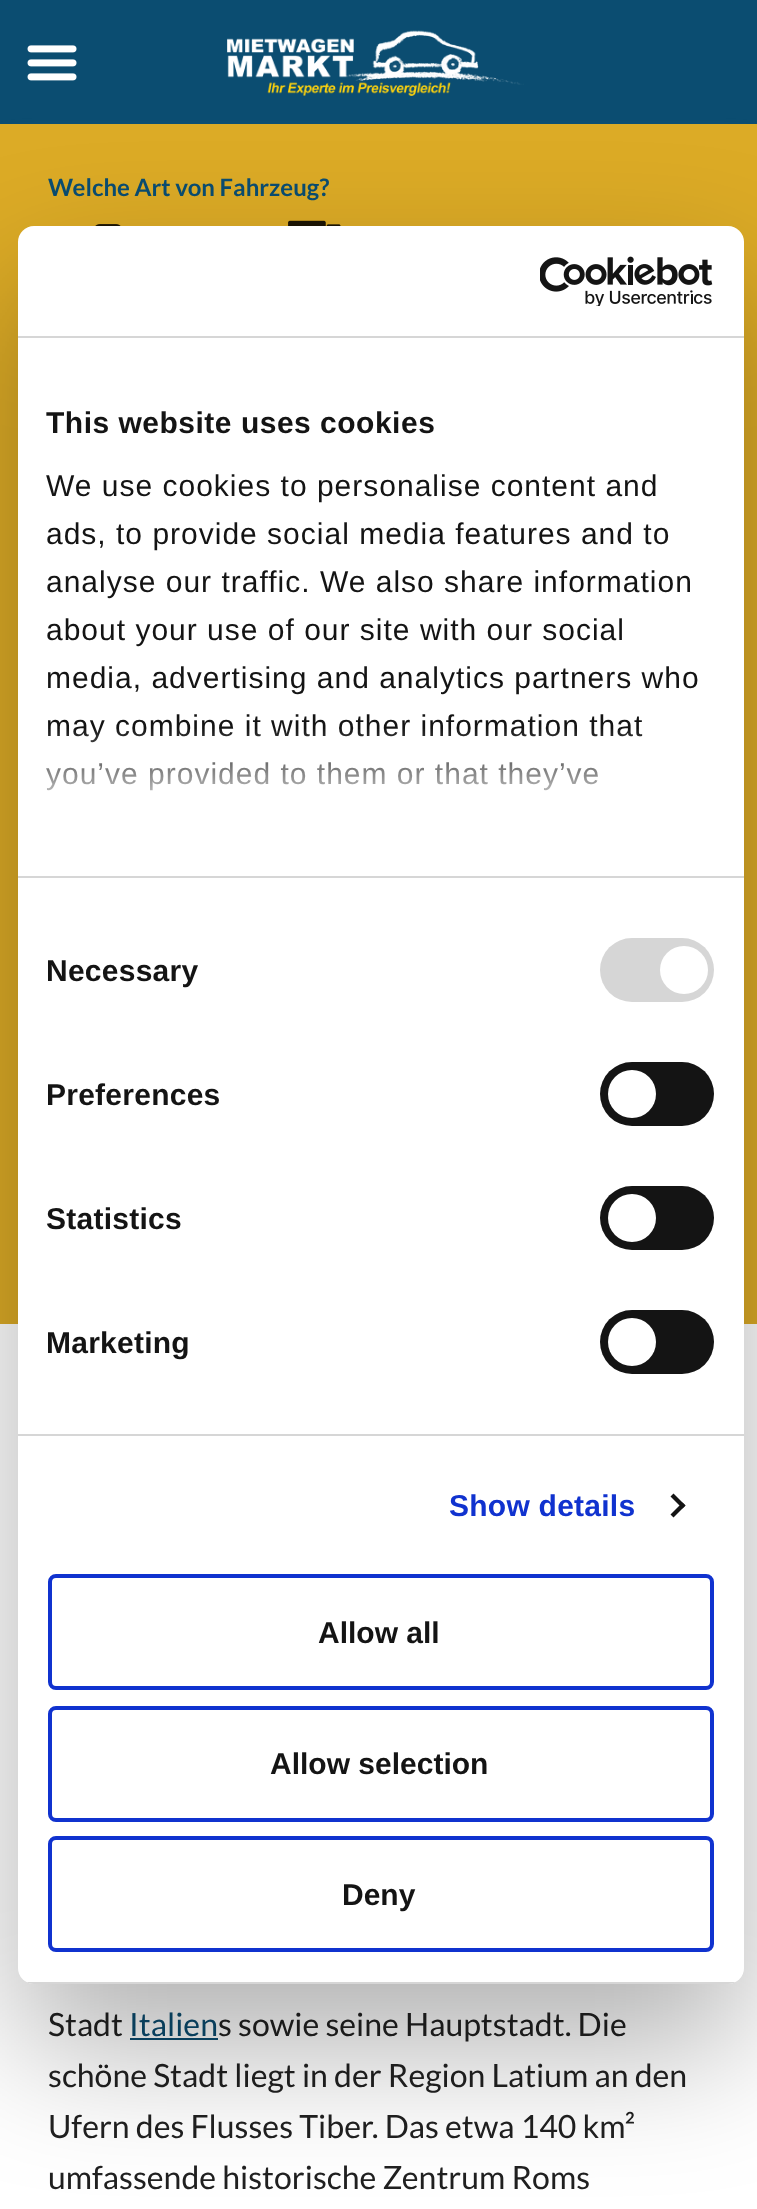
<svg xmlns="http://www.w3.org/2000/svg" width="757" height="2209">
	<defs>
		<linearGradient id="g1" gradientUnits="userSpaceOnUse" x1="367" y1="877" x2="367" y2="727"><stop offset="0" stop-color="#FFFFFF" /><stop offset="0.5" stop-color="#FFFFFF" stop-opacity="0.8" /><stop offset="1" stop-color="#FFFFFF" stop-opacity="0" /></linearGradient>
		<clipPath id="clip1"><rect x="18" y="226" width="726" height="1758" rx="16" /></clipPath>
	</defs>
	<rect width="100%" height="100%" fill="#0B4D71" />
	<image x="27" y="45" width="50" height="36" href="assets/img1.png" />
	<image x="227" y="30" width="297" height="66" href="assets/img2.png" />
	<rect x="10" y="154" width="738" height="1180" fill="#D9D9D9" filter="blur(15px)" />
	<rect x="0" y="124" width="757" height="1200" fill="#DCAB26" />
	<text x="48" y="196" font-family="Lato" font-size="24" font-weight="700" fill="#0B4D71">Welche Art von Fahrzeug?</text>
	<image x="95" y="224" width="26" height="2" href="assets/img3.png" />
	<image x="288" y="220" width="53" height="6" href="assets/img4.png" />
	<rect x="0" y="1324" width="757" height="885" fill="#FFFFFF" />
	<text x="48" y="2036" font-family="Lato" font-size="32" fill="#212121">Stadt</text>
	<text x="129" y="2036" font-family="Lato" font-size="32" fill="#0B4D71">Italien</text>
	<rect x="130" y="2038" width="88" height="2" fill="#0B4D71" />
	<g font-family="Lato" font-size="32" fill="#212121">
		<text x="218" y="2036">s sowie seine Hauptstadt. Die</text>
		<text x="48" y="2087">schöne Stadt liegt in der Region Latium an den</text>
		<text x="48" y="2138">Ufern des Flusses Tiber. Das etwa 140 km²</text>
		<text x="48" y="2189">umfassende historische Zentrum Roms</text>
	</g>
	<rect x="18" y="290" width="726" height="1758" rx="16" fill="#000000" fill-opacity="0.3" filter="blur(68px)" />
	<rect x="18" y="226" width="726" height="1758" rx="16" fill="#FFFFFF" />
	<rect x="18" y="336" width="726" height="2" fill="#D6D6D6" />
	<image x="540" y="256" width="173" height="50" href="assets/img5.png" />
	<rect x="18" y="876" width="726" height="2" fill="#D6D6D6" />
	<text x="46" y="433" font-family="Liberation Sans" font-size="30" font-weight="700" letter-spacing="0.5" fill="#141414">This website uses cookies</text>
	<g font-family="Liberation Sans" font-size="30" letter-spacing="1" fill="#141414">
		<text x="46" y="496">We use cookies to personalise content and</text>
		<text x="46" y="544">ads, to provide social media features and to</text>
		<text x="46" y="592">analyse our traffic. We also share information</text>
		<text x="46" y="640">about your use of our site with our social</text>
		<text x="46" y="688">media, advertising and analytics partners who</text>
		<text x="46" y="736">may combine it with other information that</text>
		<text x="46" y="784">you’ve provided to them or that they’ve</text>
	</g>
	<rect x="46" y="729" width="596" height="62" fill="url(#g1)" />
	<rect x="18" y="1434" width="726" height="2" fill="#D6D6D6" />
	<text x="46" y="981" font-family="Liberation Sans" font-size="30" font-weight="700" letter-spacing="0.25" fill="#141414">Necessary</text>
	<rect x="600" y="938" width="114" height="64" rx="32" fill="#D6D6D6" />
	<circle cx="684" cy="970" r="24" fill="#FFFFFF" />
	<text x="46" y="1105" font-family="Liberation Sans" font-size="30" font-weight="700" letter-spacing="0.25" fill="#141414">Preferences</text>
	<rect x="600" y="1062" width="114" height="64" rx="32" fill="#141414" />
	<circle cx="632" cy="1094" r="24" fill="#FFFFFF" />
	<text x="46" y="1229" font-family="Liberation Sans" font-size="30" font-weight="700" letter-spacing="0.25" fill="#141414">Statistics</text>
	<rect x="600" y="1186" width="114" height="64" rx="32" fill="#141414" />
	<circle cx="632" cy="1218" r="24" fill="#FFFFFF" />
	<text x="46" y="1353" font-family="Liberation Sans" font-size="30" font-weight="700" letter-spacing="0.25" fill="#141414">Marketing</text>
	<rect x="600" y="1310" width="114" height="64" rx="32" fill="#141414" />
	<circle cx="632" cy="1342" r="24" fill="#FFFFFF" />
	<text x="449" y="1516" font-family="Liberation Sans" font-size="30" font-weight="700" letter-spacing="0.25" fill="#1032CF">Show details</text>
	<path d="M673.5 1493.5L685.5 1505.5L682.5 1508.5L670.5 1496.5Z" fill="#141414" />
	<path d="M682.5 1502.5L685.5 1505.5L673.5 1517.5L670.5 1514.5Z" fill="#141414" />
	<g clip-path="url(#clip1)">
		<rect x="18" y="1982" width="726" height="2" fill="#D6D6D6" />
	</g>
	<rect x="50" y="1576" width="662" height="112" rx="6" fill="none" stroke="#1032CF" stroke-width="4" />
	<text x="318" y="1643" font-family="Liberation Sans" font-size="30" font-weight="700" fill="#141414">Allow all</text>
	<rect x="50" y="1708" width="662" height="112" rx="6" fill="none" stroke="#1032CF" stroke-width="4" />
	<text x="270" y="1774" font-family="Liberation Sans" font-size="30" font-weight="700" fill="#141414">Allow selection</text>
	<rect x="50" y="1838" width="662" height="112" rx="6" fill="none" stroke="#1032CF" stroke-width="4" />
	<text x="342" y="1905" font-family="Liberation Sans" font-size="30" font-weight="700" fill="#141414">Deny</text>
</svg>
